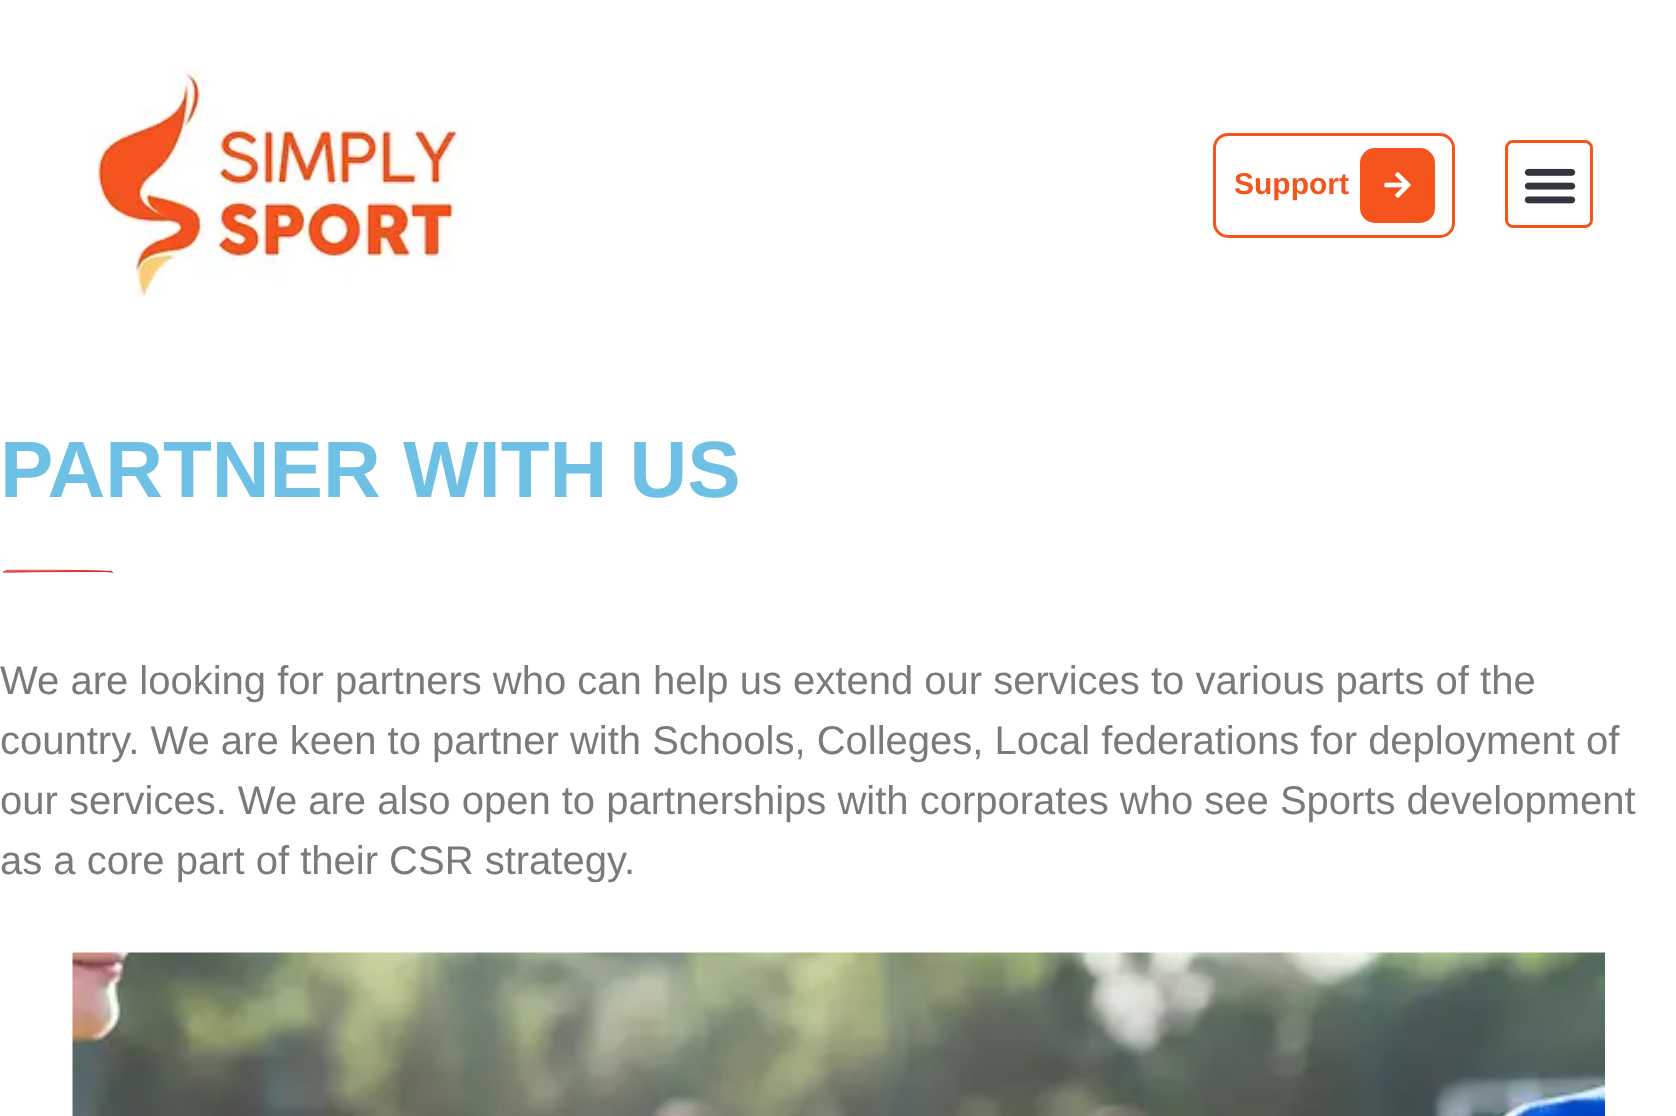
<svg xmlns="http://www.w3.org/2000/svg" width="1676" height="1116">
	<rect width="100%" height="100%" fill="#FFFFFF" />
	<image x="95" y="69" width="370" height="232" href="assets/img1.png" />
	<rect x="1214.5" y="134.5" width="239" height="102" rx="13.5" fill="none" stroke="#F5541D" stroke-width="3" />
	<text x="1234" y="194" font-family="Liberation Sans" font-size="30" font-weight="700" fill="#F5541D">Support</text>
	<rect x="1360" y="148" width="75" height="75" rx="15" fill="#F5541D" />
	<image x="1384" y="172" width="27" height="26" href="assets/img2.png" />
	<rect x="1506.5" y="141.5" width="85" height="85" rx="6.5" fill="none" stroke="#F5541D" stroke-width="3" />
	<image x="1524" y="168" width="52" height="36" href="assets/img3.png" />
	<text x="0" y="497" font-family="Liberation Sans" font-size="80" font-weight="700" fill="#6EC1E4">PARTNER WITH US</text>
	<path d="M5.5 570.5C5.5 570.5 65.5 569.5 111.5 571.5C111.5 571.5-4 571.5 3.5 572C24.5 572.5 100 569 113 572.5" fill="none" stroke="#DC2628" stroke-width="0.9" />
	<g font-family="Liberation Sans" font-size="40" fill="#7A7A7A">
		<text x="0" y="694">We are looking for partners who can help us extend our services to various parts of the</text>
		<text x="0" y="754">country. We are keen to partner with Schools, Colleges, Local federations for deployment of</text>
		<text x="0" y="814">our services. We are also open to partnerships with corporates who see Sports development</text>
		<text x="0" y="874">as a core part of their CSR strategy.</text>
	</g>
	<image x="72" y="952" width="1533" height="164" href="assets/img4.png" />
</svg>
